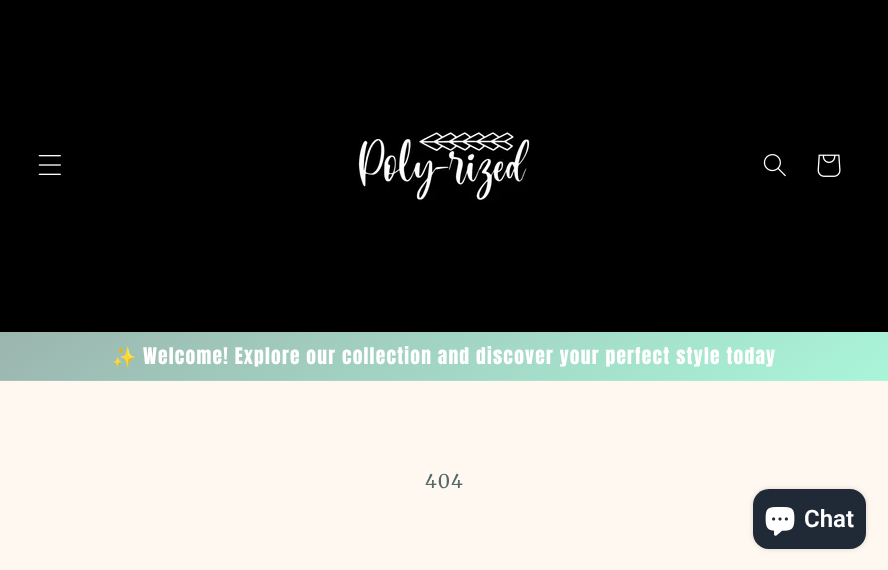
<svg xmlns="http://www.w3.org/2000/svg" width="888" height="570">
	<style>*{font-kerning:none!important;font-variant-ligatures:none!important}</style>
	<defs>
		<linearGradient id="g1" gradientUnits="userSpaceOnUse" x1="173" y1="-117" x2="715" y2="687"><stop offset="0" stop-color="#949498" /><stop offset="0.86" stop-color="#AAF8DB" /></linearGradient>
		<linearGradient id="g2" gradientUnits="userSpaceOnUse" x1="173" y1="-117" x2="715" y2="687"><stop offset="0" stop-color="#9D9DA0" /><stop offset="0.86" stop-color="#B1F9DE" /></linearGradient>
	</defs>
	<rect width="100%" height="100%" fill="#FFF8F0" />
	<rect x="0" y="0" width="888" height="332" fill="#000000" />
	<image x="38" y="155" width="23" height="20" href="assets/img1.png" />
	<image x="358" y="131" width="172" height="71" href="assets/img2.png" />
	<image x="763" y="154" width="23" height="23" href="assets/img3.png" />
	<image x="817" y="154" width="24" height="23" href="assets/img4.png" />
	<rect x="0" y="332" width="888" height="48" fill="url(#g1)" />
	<rect x="0" y="380" width="888" height="1" fill="url(#g2)" />
	<text x="112" y="364" font-family="Noto Color Emoji" font-size="19.5" letter-spacing="1.2" fill="#FFFFFF">✨</text>
	<text x="143" y="364" font-family="Anton" font-size="19.5" letter-spacing="1.2" fill="#FFFFFF">Welcome! Explore our collection and discover your perfect style today</text>
	<text x="425" y="488" font-family="Merriweather" font-size="19" letter-spacing="1" fill="#536A68">404</text>
	<rect x="753" y="489" width="113" height="60" rx="16" fill="#000000" fill-opacity="0.15" filter="blur(2.5px)" />
	<rect x="753" y="489" width="113" height="60" rx="16" fill="#202A36" />
	<image x="765" y="507" width="30" height="29" href="assets/img5.png" />
	<text x="804" y="527" font-family="Roboto" font-size="24" font-weight="600" fill="#FFFFFF">Chat</text>
</svg>
